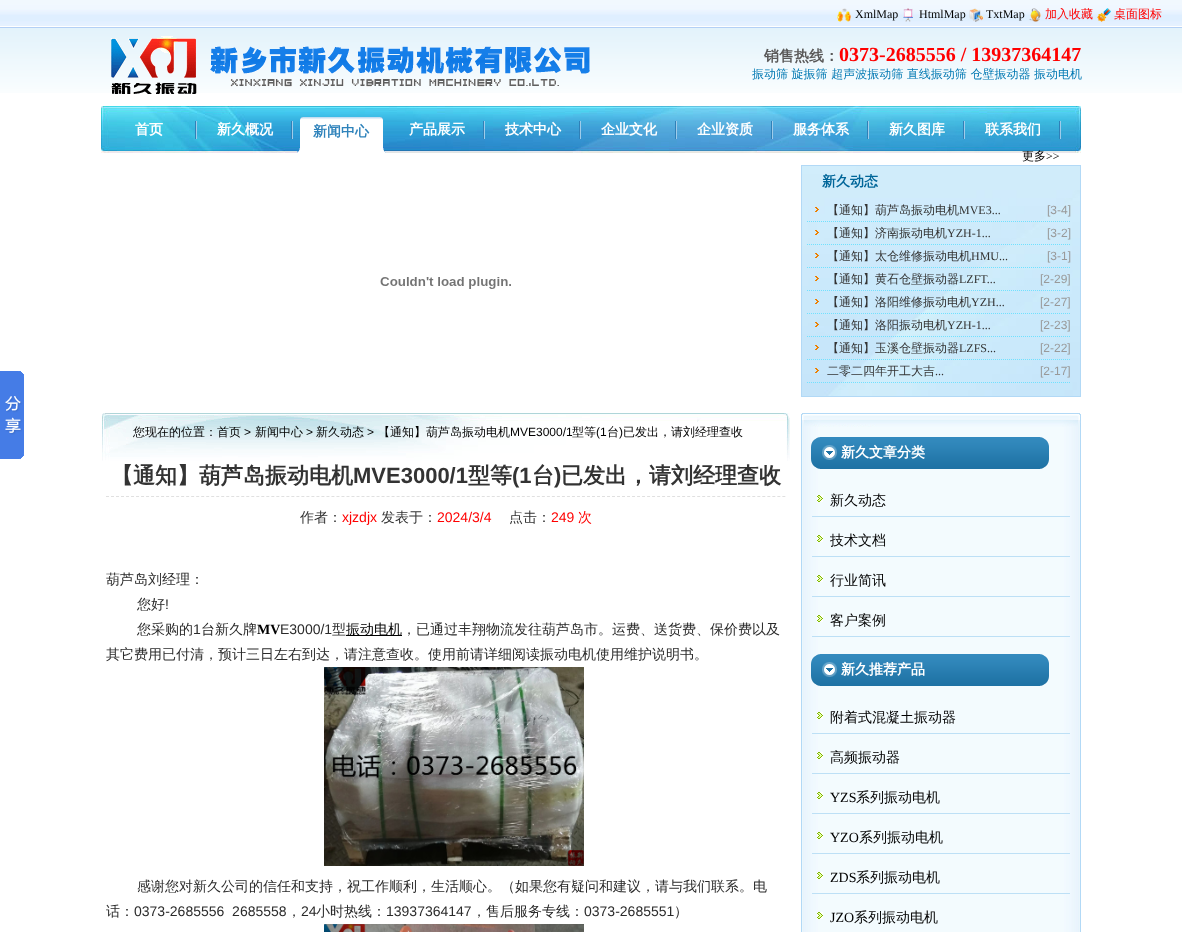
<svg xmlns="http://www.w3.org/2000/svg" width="1182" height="932">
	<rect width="100%" height="100%" fill="#FFFFFF" />
	<image x="0" y="28" width="1182" height="65" href="assets/img1.png" />
	<image x="0" y="0" width="1182" height="28" href="assets/img2.png" />
	<image x="837" y="8" width="14" height="14" href="assets/img3.png" />
	<text x="855" y="18" font-family="Liberation Serif" font-size="12" fill="#000000">XmlMap</text>
	<image x="903" y="8" width="10" height="14" href="assets/img4.png" />
	<text x="919" y="18" font-family="Liberation Serif" font-size="12" fill="#000000">HtmlMap</text>
	<image x="969" y="8" width="14" height="14" href="assets/img5.png" />
	<text x="986" y="18" font-family="Liberation Serif" font-size="12" fill="#000000">TxtMap</text>
	<image x="1029" y="8" width="12" height="14" href="assets/img6.png" />
	<text x="1045" y="18" font-family="WenQuanYi Zen Hei" font-size="12" font-weight="500" fill="#FF0000">加入收藏</text>
	<image x="1097" y="8" width="14" height="14" href="assets/img7.png" />
	<text x="1114" y="18" font-family="WenQuanYi Zen Hei" font-size="12" font-weight="500" fill="#FF0000">桌面图标</text>
	<image x="111" y="36" width="479" height="58" href="assets/img8.png" />
	<text x="764" y="61" font-family="WenQuanYi Zen Hei" font-size="15" font-weight="700" fill="#595858">销售热线：</text>
	<text x="839" y="61" font-family="Liberation Serif" font-size="20" font-weight="700" fill="#FF0000">0373-2685556 / 13937364147</text>
	<text x="752" y="78" font-family="WenQuanYi Zen Hei" font-size="12" font-weight="500" fill="#0279B3">振动筛 旋振筛 超声波振动筛 直线振动筛 仓壁振动器 振动电机</text>
	<image x="101" y="106" width="980" height="47" href="assets/img9.png" />
	<image x="195" y="121" width="2" height="18" href="assets/img10.png" />
	<text x="135" y="134" font-family="WenQuanYi Zen Hei" font-size="14" font-weight="700" fill="#FFFFFF">首页</text>
	<image x="291" y="121" width="2" height="18" href="assets/img10.png" />
	<text x="217" y="134" font-family="WenQuanYi Zen Hei" font-size="14" font-weight="700" fill="#FFFFFF">新久概况</text>
	<image x="297" y="117" width="89" height="36" href="assets/img11.png" />
	<text x="313" y="136" font-family="WenQuanYi Zen Hei" font-size="14" font-weight="700" fill="#2F83BB">新闻中心</text>
	<image x="483" y="121" width="2" height="18" href="assets/img10.png" />
	<text x="409" y="134" font-family="WenQuanYi Zen Hei" font-size="14" font-weight="700" fill="#FFFFFF">产品展示</text>
	<image x="579" y="121" width="2" height="18" href="assets/img10.png" />
	<text x="505" y="134" font-family="WenQuanYi Zen Hei" font-size="14" font-weight="700" fill="#FFFFFF">技术中心</text>
	<image x="675" y="121" width="2" height="18" href="assets/img10.png" />
	<text x="601" y="134" font-family="WenQuanYi Zen Hei" font-size="14" font-weight="700" fill="#FFFFFF">企业文化</text>
	<image x="771" y="121" width="2" height="18" href="assets/img10.png" />
	<text x="697" y="134" font-family="WenQuanYi Zen Hei" font-size="14" font-weight="700" fill="#FFFFFF">企业资质</text>
	<image x="867" y="121" width="2" height="18" href="assets/img10.png" />
	<text x="793" y="134" font-family="WenQuanYi Zen Hei" font-size="14" font-weight="700" fill="#FFFFFF">服务体系</text>
	<image x="963" y="121" width="2" height="18" href="assets/img10.png" />
	<text x="889" y="134" font-family="WenQuanYi Zen Hei" font-size="14" font-weight="700" fill="#FFFFFF">新久图库</text>
	<image x="1059" y="121" width="2" height="18" href="assets/img10.png" />
	<text x="985" y="134" font-family="WenQuanYi Zen Hei" font-size="14" font-weight="700" fill="#FFFFFF">联系我们</text>
	<image x="380" y="277" width="131" height="12" href="assets/img12.png" />
	<image x="802" y="166" width="278" height="230" href="assets/img13.png" />
	<rect x="801.5" y="165.5" width="279" height="231" fill="none" stroke="#B2D9F6" />
	<text x="1022" y="160" font-family="WenQuanYi Zen Hei" font-size="12" font-weight="500" fill="#000000">更多</text>
	<text x="1046" y="160" font-family="Liberation Serif" font-size="12" fill="#000000">&gt;&gt;</text>
	<text x="822" y="186" font-family="WenQuanYi Zen Hei" font-size="14" font-weight="700" fill="#006699">新久动态</text>
	<image x="815" y="207" width="4" height="5" href="assets/img14.png" />
	<path d="M807 221.5H1071" fill="none" stroke="#70E1FF" stroke-dasharray="1 1" />
	<text x="827" y="214" font-family="WenQuanYi Zen Hei" font-size="12" font-weight="500" fill="#333333">【通知】葫芦岛振动电机</text>
	<text x="959" y="214" font-family="Liberation Serif" font-size="12" fill="#333333">MVE3...</text>
	<text x="1047" y="214" font-family="Liberation Sans" font-size="12" fill="#999999">[3-4]</text>
	<image x="815" y="230" width="4" height="5" href="assets/img15.png" />
	<path d="M807 244.5H1071" fill="none" stroke="#70E1FF" stroke-dasharray="1 1" />
	<text x="827" y="237" font-family="WenQuanYi Zen Hei" font-size="12" font-weight="500" fill="#333333">【通知】济南振动电机</text>
	<text x="947" y="237" font-family="Liberation Serif" font-size="12" fill="#333333">YZH-1...</text>
	<text x="1047" y="237" font-family="Liberation Sans" font-size="12" fill="#999999">[3-2]</text>
	<image x="815" y="253" width="4" height="5" href="assets/img16.png" />
	<path d="M807 267.5H1071" fill="none" stroke="#70E1FF" stroke-dasharray="1 1" />
	<text x="827" y="260" font-family="WenQuanYi Zen Hei" font-size="12" font-weight="500" fill="#333333">【通知】太仓维修振动电机</text>
	<text x="971" y="260" font-family="Liberation Serif" font-size="12" fill="#333333">HMU...</text>
	<text x="1047" y="260" font-family="Liberation Sans" font-size="12" fill="#999999">[3-1]</text>
	<image x="815" y="276" width="4" height="5" href="assets/img17.png" />
	<path d="M807 290.5H1071" fill="none" stroke="#70E1FF" stroke-dasharray="1 1" />
	<text x="827" y="283" font-family="WenQuanYi Zen Hei" font-size="12" font-weight="500" fill="#333333">【通知】黄石仓壁振动器</text>
	<text x="959" y="283" font-family="Liberation Serif" font-size="12" fill="#333333">LZFT...</text>
	<text x="1040" y="283" font-family="Liberation Sans" font-size="12" fill="#999999">[2-29]</text>
	<image x="815" y="299" width="4" height="5" href="assets/img18.png" />
	<path d="M807 313.5H1071" fill="none" stroke="#70E1FF" stroke-dasharray="1 1" />
	<text x="827" y="306" font-family="WenQuanYi Zen Hei" font-size="12" font-weight="500" fill="#333333">【通知】洛阳维修振动电机</text>
	<text x="971" y="306" font-family="Liberation Serif" font-size="12" fill="#333333">YZH...</text>
	<text x="1040" y="306" font-family="Liberation Sans" font-size="12" fill="#999999">[2-27]</text>
	<image x="815" y="322" width="4" height="5" href="assets/img19.png" />
	<path d="M807 336.5H1071" fill="none" stroke="#70E1FF" stroke-dasharray="1 1" />
	<text x="827" y="329" font-family="WenQuanYi Zen Hei" font-size="12" font-weight="500" fill="#333333">【通知】洛阳振动电机</text>
	<text x="947" y="329" font-family="Liberation Serif" font-size="12" fill="#333333">YZH-1...</text>
	<text x="1040" y="329" font-family="Liberation Sans" font-size="12" fill="#999999">[2-23]</text>
	<image x="815" y="345" width="4" height="5" href="assets/img20.png" />
	<path d="M807 359.5H1071" fill="none" stroke="#70E1FF" stroke-dasharray="1 1" />
	<text x="827" y="352" font-family="WenQuanYi Zen Hei" font-size="12" font-weight="500" fill="#333333">【通知】玉溪仓壁振动器</text>
	<text x="959" y="352" font-family="Liberation Serif" font-size="12" fill="#333333">LZFS...</text>
	<text x="1040" y="352" font-family="Liberation Sans" font-size="12" fill="#999999">[2-22]</text>
	<image x="815" y="368" width="4" height="5" href="assets/img20.png" />
	<path d="M807 382.5H1071" fill="none" stroke="#70E1FF" stroke-dasharray="1 1" />
	<text x="827" y="375" font-family="WenQuanYi Zen Hei" font-size="12" font-weight="500" fill="#333333">二零二四年开工大吉</text>
	<text x="935" y="375" font-family="Liberation Serif" font-size="12" fill="#333333">...</text>
	<text x="1040" y="375" font-family="Liberation Sans" font-size="12" fill="#999999">[2-17]</text>
	<image x="0" y="371" width="24" height="88" href="assets/img21.png" />
	<image x="102" y="413" width="688" height="48" href="assets/img22.png" />
	<text x="133" y="436" font-family="WenQuanYi Zen Hei" font-size="12" font-weight="500" fill="#000000">您现在的位置：首页</text>
	<text x="244" y="436" font-family="Liberation Sans" font-size="12" fill="#000000">&gt;</text>
	<text x="255" y="436" font-family="WenQuanYi Zen Hei" font-size="12" font-weight="500" fill="#000000">新闻中心</text>
	<text x="306" y="436" font-family="Liberation Sans" font-size="12" fill="#000000">&gt;</text>
	<text x="316" y="436" font-family="WenQuanYi Zen Hei" font-size="12" font-weight="500" fill="#000000">新久动态</text>
	<text x="367" y="436" font-family="Liberation Sans" font-size="12" fill="#000000">&gt;</text>
	<text x="378" y="436" font-family="WenQuanYi Zen Hei" font-size="12" font-weight="500" fill="#000000">【通知】葫芦岛振动电机</text>
	<text x="510" y="436" font-family="Liberation Sans" font-size="12" fill="#000000">MVE3000/1</text>
	<text x="572" y="436" font-family="WenQuanYi Zen Hei" font-size="12" font-weight="500" fill="#000000">型等</text>
	<text x="596" y="436" font-family="Liberation Sans" font-size="12" fill="#000000">(1</text>
	<text x="607" y="436" font-family="WenQuanYi Zen Hei" font-size="12" font-weight="500" fill="#000000">台</text>
	<text x="619" y="436" font-family="Liberation Sans" font-size="12" fill="#000000">)</text>
	<text x="623" y="436" font-family="WenQuanYi Zen Hei" font-size="12" font-weight="500" fill="#000000">已发出，请刘经理查收</text>
	<text x="111" y="483" font-family="WenQuanYi Zen Hei" font-size="22" font-weight="700" fill="#333333">【通知】葫芦岛振动电机</text>
	<text x="353" y="483" font-family="Liberation Sans" font-size="22" font-weight="700" fill="#333333">MVE3000/1</text>
	<text x="468" y="483" font-family="WenQuanYi Zen Hei" font-size="22" font-weight="700" fill="#333333">型等</text>
	<text x="512" y="483" font-family="Liberation Sans" font-size="22" font-weight="700" fill="#333333">(1</text>
	<text x="532" y="483" font-family="WenQuanYi Zen Hei" font-size="22" font-weight="700" fill="#333333">台</text>
	<text x="554" y="483" font-family="Liberation Sans" font-size="22" font-weight="700" fill="#333333">)</text>
	<text x="561" y="483" font-family="WenQuanYi Zen Hei" font-size="22" font-weight="700" fill="#333333">已发出，请刘经理查收</text>
	<path d="M106 496.5H786" fill="none" stroke="#E0E0E0" stroke-dasharray="3 2.01" />
	<text x="300" y="522" font-family="WenQuanYi Zen Hei" font-size="14" font-weight="500" fill="#333333">作者：</text>
	<text x="342" y="522" font-family="Liberation Sans" font-size="14" fill="#FF0000">xjzdjx</text>
	<text x="381" y="522" font-family="WenQuanYi Zen Hei" font-size="14" font-weight="500" fill="#333333">发表于：</text>
	<text x="437" y="522" font-family="Liberation Sans" font-size="14" fill="#FF0000">2024/3/4</text>
	<text x="509" y="522" font-family="WenQuanYi Zen Hei" font-size="14" font-weight="500" fill="#333333">点击：</text>
	<text x="551" y="522" font-family="Liberation Sans" font-size="14" fill="#FF0000">249</text>
	<text x="578" y="522" font-family="WenQuanYi Zen Hei" font-size="14" font-weight="500" fill="#FF0000">次</text>
	<g font-family="WenQuanYi Zen Hei" font-size="14" font-weight="500" fill="#2A2A2A">
		<text x="106" y="584">葫芦岛刘经理：</text>
		<text x="137" y="609">您好</text>
	</g>
	<text x="165" y="609" font-family="Liberation Sans" font-size="14" fill="#2A2A2A">!</text>
	<text x="137" y="634" font-family="WenQuanYi Zen Hei" font-size="14" font-weight="500" fill="#2A2A2A">您采购的</text>
	<text x="193" y="634" font-family="Liberation Sans" font-size="14" fill="#2A2A2A">1</text>
	<text x="201" y="634" font-family="WenQuanYi Zen Hei" font-size="14" font-weight="500" fill="#2A2A2A">台新久牌</text>
	<text x="257" y="634" font-family="Liberation Serif" font-size="14" font-weight="700" fill="#000000">MV</text>
	<text x="280" y="634" font-family="Liberation Sans" font-size="14" fill="#2A2A2A">E3000/1</text>
	<text x="332" y="634" font-family="WenQuanYi Zen Hei" font-size="14" font-weight="500" fill="#2A2A2A">型</text>
	<rect x="346" y="635" width="56" height="1" fill="#000000" />
	<text x="346" y="634" font-family="WenQuanYi Zen Hei" font-size="14" font-weight="500" fill="#000000">振动电机</text>
	<g font-family="WenQuanYi Zen Hei" font-size="14" font-weight="500" fill="#2A2A2A">
		<text x="402" y="634">，已通过丰翔物流发往葫芦岛市。运费、送货费、保价费以及</text>
		<text x="106" y="659">其它费用已付清，预计三日左右到达，请注意查收。使用前请详细阅读振动电机使用维护说明书。</text>
	</g>
	<image x="324" y="667" width="260" height="199" href="assets/img23.png" />
	<g font-family="WenQuanYi Zen Hei" font-size="14" font-weight="500" fill="#2A2A2A">
		<text x="137" y="891">感谢您对新久公司的信任和支持，祝工作顺利，生活顺心。（如果您有疑问和建议，请与我们联系。电</text>
		<text x="106" y="916">话：</text>
	</g>
	<text x="134" y="916" font-family="Liberation Sans" font-size="14" fill="#2A2A2A" xml:space="preserve">0373-2685556  2685558</text>
	<text x="287" y="916" font-family="WenQuanYi Zen Hei" font-size="14" font-weight="500" fill="#2A2A2A">，</text>
	<text x="301" y="916" font-family="Liberation Sans" font-size="14" fill="#2A2A2A">24</text>
	<text x="316" y="916" font-family="WenQuanYi Zen Hei" font-size="14" font-weight="500" fill="#2A2A2A">小时热线：</text>
	<text x="386" y="916" font-family="Liberation Sans" font-size="14" fill="#2A2A2A">13937364147</text>
	<text x="472" y="916" font-family="WenQuanYi Zen Hei" font-size="14" font-weight="500" fill="#2A2A2A">，售后服务专线：</text>
	<text x="584" y="916" font-family="Liberation Sans" font-size="14" fill="#2A2A2A">0373-2685551</text>
	<text x="674" y="916" font-family="WenQuanYi Zen Hei" font-size="14" font-weight="500" fill="#2A2A2A">）</text>
	<image x="324" y="924" width="260" height="8" href="assets/img24.png" />
	<image x="801" y="413" width="280" height="14" href="assets/img25.png" />
	<image x="801" y="427" width="280" height="505" href="assets/img26.png" />
	<image x="811" y="437" width="30" height="32" href="assets/img27.png" />
	<image x="841" y="437" width="196" height="32" href="assets/img28.png" />
	<text x="841" y="457" font-family="WenQuanYi Zen Hei" font-size="14" font-weight="700" fill="#FFFFFF">新久文章分类</text>
	<image x="1037" y="437" width="12" height="32" href="assets/img29.png" />
	<image x="817" y="495" width="6" height="7" href="assets/img30.png" />
	<rect x="812" y="516" width="258" height="1" fill="#BDE0F6" />
	<text x="830" y="505" font-family="WenQuanYi Zen Hei" font-size="14" font-weight="500" fill="#000000">新久动态</text>
	<image x="817" y="535" width="6" height="7" href="assets/img30.png" />
	<rect x="812" y="556" width="258" height="1" fill="#BDE0F6" />
	<text x="830" y="545" font-family="WenQuanYi Zen Hei" font-size="14" font-weight="500" fill="#000000">技术文档</text>
	<image x="817" y="575" width="6" height="7" href="assets/img30.png" />
	<rect x="812" y="596" width="258" height="1" fill="#BDE0F6" />
	<text x="830" y="585" font-family="WenQuanYi Zen Hei" font-size="14" font-weight="500" fill="#000000">行业简讯</text>
	<image x="817" y="615" width="6" height="7" href="assets/img30.png" />
	<rect x="812" y="636" width="258" height="1" fill="#BDE0F6" />
	<text x="830" y="625" font-family="WenQuanYi Zen Hei" font-size="14" font-weight="500" fill="#000000">客户案例</text>
	<image x="811" y="654" width="30" height="32" href="assets/img27.png" />
	<image x="841" y="654" width="196" height="32" href="assets/img28.png" />
	<text x="841" y="674" font-family="WenQuanYi Zen Hei" font-size="14" font-weight="700" fill="#FFFFFF">新久推荐产品</text>
	<image x="1037" y="654" width="12" height="32" href="assets/img29.png" />
	<image x="817" y="712" width="6" height="7" href="assets/img30.png" />
	<rect x="812" y="733" width="258" height="1" fill="#BDE0F6" />
	<text x="830" y="722" font-family="WenQuanYi Zen Hei" font-size="14" font-weight="500" fill="#000000">附着式混凝土振动器</text>
	<image x="817" y="752" width="6" height="7" href="assets/img30.png" />
	<rect x="812" y="773" width="258" height="1" fill="#BDE0F6" />
	<text x="830" y="762" font-family="WenQuanYi Zen Hei" font-size="14" font-weight="500" fill="#000000">高频振动器</text>
	<image x="817" y="792" width="6" height="7" href="assets/img30.png" />
	<rect x="812" y="813" width="258" height="1" fill="#BDE0F6" />
	<text x="830" y="802" font-family="Liberation Serif" font-size="14" fill="#000000">YZS</text>
	<text x="856" y="802" font-family="WenQuanYi Zen Hei" font-size="14" font-weight="500" fill="#000000">系列振动电机</text>
	<image x="817" y="832" width="6" height="7" href="assets/img30.png" />
	<rect x="812" y="853" width="258" height="1" fill="#BDE0F6" />
	<text x="830" y="842" font-family="Liberation Serif" font-size="14" fill="#000000">YZO</text>
	<text x="859" y="842" font-family="WenQuanYi Zen Hei" font-size="14" font-weight="500" fill="#000000">系列振动电机</text>
	<image x="817" y="872" width="6" height="7" href="assets/img30.png" />
	<rect x="812" y="893" width="258" height="1" fill="#BDE0F6" />
	<text x="830" y="882" font-family="Liberation Serif" font-size="14" fill="#000000">ZDS</text>
	<text x="856" y="882" font-family="WenQuanYi Zen Hei" font-size="14" font-weight="500" fill="#000000">系列振动电机</text>
	<image x="817" y="912" width="6" height="7" href="assets/img30.png" />
	<text x="830" y="922" font-family="Liberation Serif" font-size="14" fill="#000000">JZO</text>
	<text x="854" y="922" font-family="WenQuanYi Zen Hei" font-size="14" font-weight="500" fill="#000000">系列振动电机</text>
</svg>
